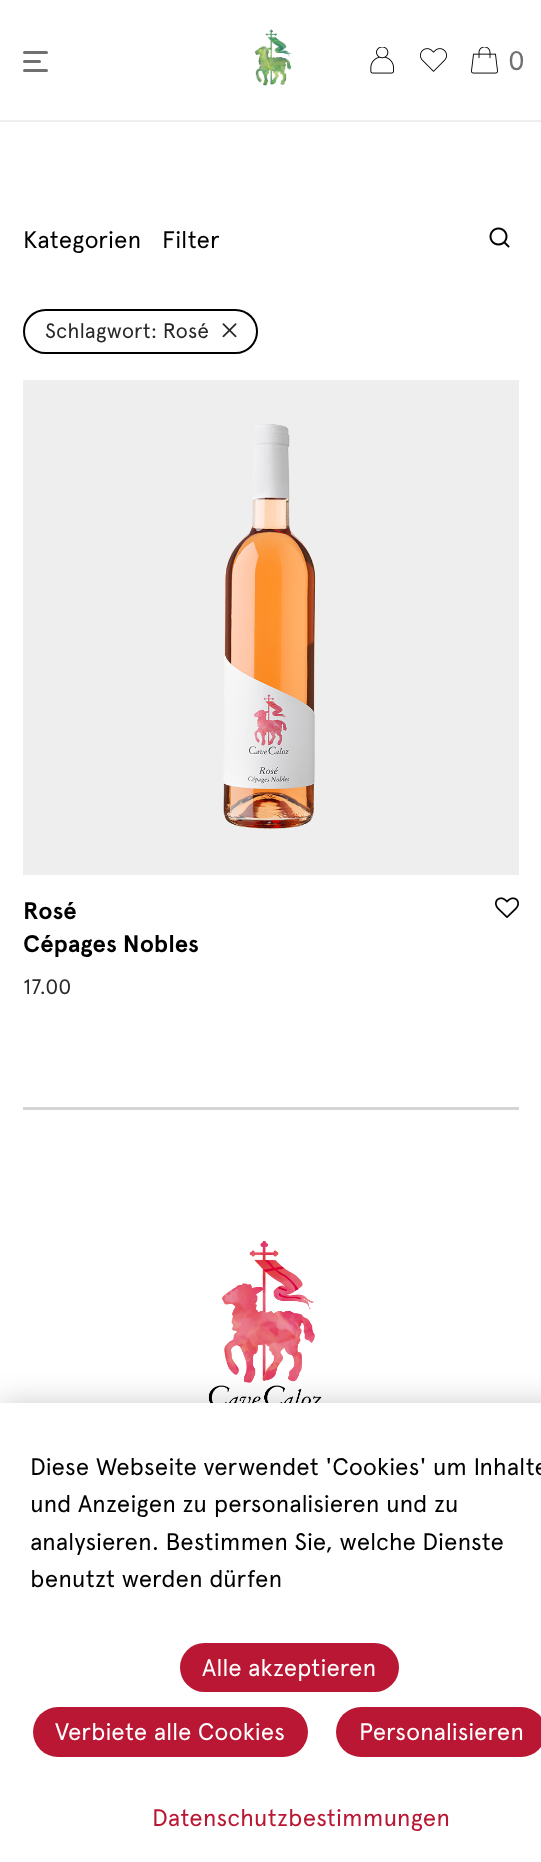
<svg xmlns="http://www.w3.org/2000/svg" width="541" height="1862">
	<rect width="100%" height="100%" fill="#FFFFFF" />
	<rect x="0" y="120" width="541" height="2" fill="#EEEEEE" />
	<rect x="23" y="51" width="25" height="3" rx="1.5" fill="#707070" />
	<rect x="23" y="60" width="18" height="3" rx="1.5" fill="#707070" />
	<rect x="23" y="69" width="25" height="3" rx="1.5" fill="#707070" />
	<image x="254" y="29" width="38" height="57" href="assets/img1.png" />
	<image x="370" y="47" width="24" height="27" href="assets/img2.png" />
	<image x="420" y="48" width="27" height="24" href="assets/img3.png" />
	<image x="471" y="47" width="27" height="27" href="assets/img4.png" />
	<text x="508" y="70" font-family="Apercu" font-size="27" fill="#707070">0</text>
	<g font-family="Apercu" font-size="24" fill="#000000">
		<text x="23" y="248">Kategorien</text>
		<text x="162" y="248">Filter</text>
	</g>
	<image x="489" y="227" width="21" height="21" href="assets/img5.png" />
	<rect x="24" y="310" width="233" height="43" rx="21.5" fill="none" stroke="#000000" stroke-width="2" />
	<text x="45" y="338" font-family="Apercu" font-size="21" fill="#282828">Schlagwort: Rosé</text>
	<image x="222" y="323" width="15" height="15" href="assets/img6.png" />
	<rect x="23" y="380" width="496" height="495" fill="#EEEEEE" />
	<image x="223" y="424" width="93" height="405" href="assets/img7.png" />
	<g font-family="Apercu" font-size="24" font-weight="700" fill="#000000">
		<text x="23" y="919">Rosé</text>
		<text x="23" y="952">Cépages Nobles</text>
	</g>
	<text x="23" y="994" font-family="Apercu" font-size="21" fill="#282828">17.00</text>
	<image x="495" y="897" width="24" height="21" href="assets/img8.png" />
	<rect x="23" y="1107" width="496" height="3" fill="#D4D4D4" />
	<image x="208" y="1240" width="114" height="163" href="assets/img9.png" />
	<rect x="0" y="1403" width="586" height="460" fill="#000000" fill-opacity="0.2" filter="blur(15px)" />
	<rect x="0" y="1403" width="541" height="459" fill="#FFFFFF" />
	<g font-family="Apercu" font-size="24" fill="#000000">
		<text x="30" y="1475">Diese Webseite verwendet 'Cookies' um Inhalte</text>
		<text x="30" y="1512">und Anzeigen zu personalisieren und zu</text>
		<text x="30" y="1550">analysieren. Bestimmen Sie, welche Dienste</text>
		<text x="30" y="1587">benutzt werden dürfen</text>
	</g>
	<rect x="180" y="1643" width="219" height="49" rx="24.5" fill="#B91733" />
	<text x="202" y="1676" font-family="Apercu" font-size="24" fill="#FFFFFF">Alle akzeptieren</text>
	<rect x="33" y="1707" width="275" height="50" rx="25" fill="#B91733" />
	<text x="55" y="1740" font-family="Apercu" font-size="24" fill="#FFFFFF">Verbiete alle Cookies</text>
	<rect x="336" y="1707" width="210" height="50" rx="25" fill="#B91733" />
	<text x="359" y="1740" font-family="Apercu" font-size="24" fill="#FFFFFF">Personalisieren</text>
	<text x="152" y="1826" font-family="Apercu" font-size="24" fill="#B91733">Datenschutzbestimmungen</text>
</svg>
